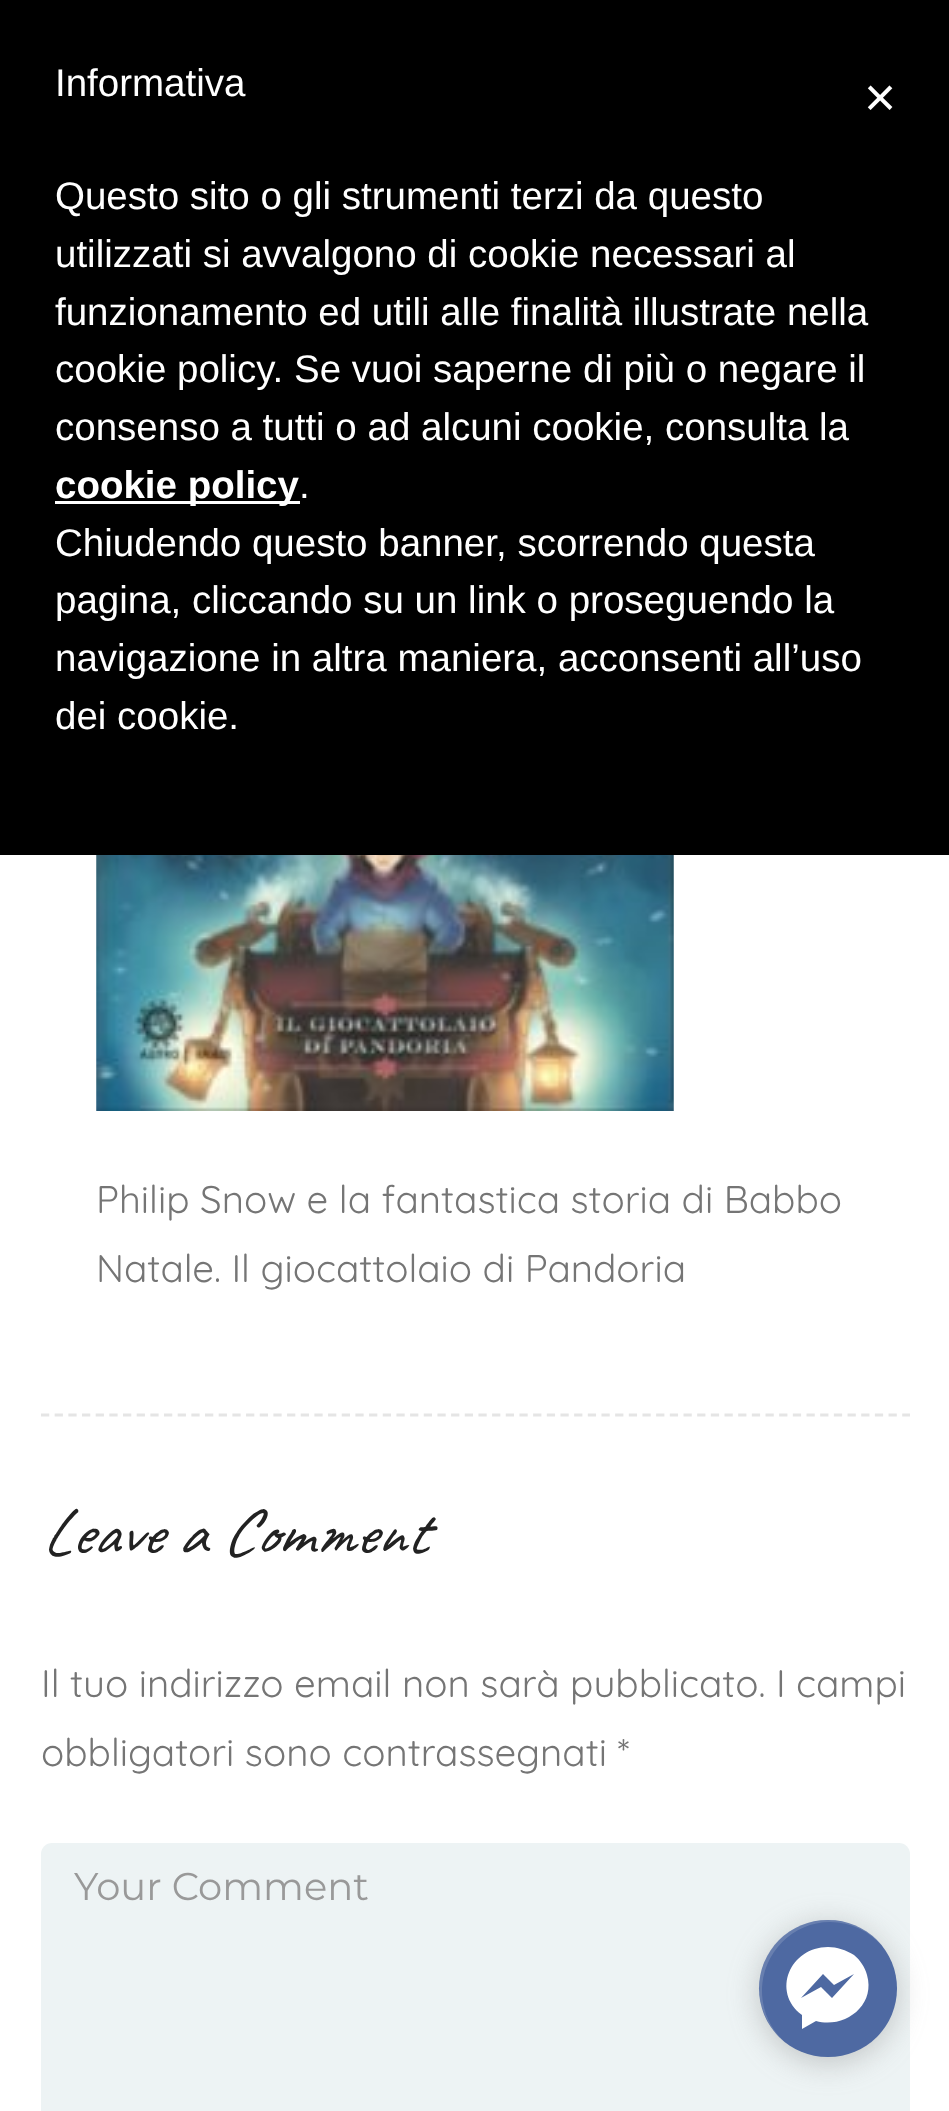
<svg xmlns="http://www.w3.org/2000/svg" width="949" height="2111">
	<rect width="100%" height="100%" fill="#FFFFFF" />
	<rect x="0" y="0" width="949" height="855" fill="#000000" />
	<g font-family="Liberation Sans" font-size="38.5" fill="#FFFFFF">
		<text x="55" y="96">Informativa</text>
		<text x="55" y="209">Questo sito o gli strumenti terzi da questo</text>
		<text x="55" y="267">utilizzati si avvalgono di cookie necessari al</text>
		<text x="55" y="325">funzionamento ed utili alle finalità illustrate nella</text>
		<text x="55" y="382">cookie policy. Se vuoi saperne di più o negare il</text>
		<text x="55" y="440">consenso a tutti o ad alcuni cookie, consulta la</text>
	</g>
	<rect x="55" y="501" width="245" height="3" fill="#FFFFFF" />
	<text x="55" y="498" font-family="Liberation Sans" font-size="38.5" font-weight="700" fill="#FFFFFF">cookie policy</text>
	<g font-family="Liberation Sans" font-size="38.5" fill="#FFFFFF">
		<text x="299" y="498">.</text>
		<text x="55" y="556">Chiudendo questo banner, scorrendo questa</text>
		<text x="55" y="613">pagina, cliccando su un link o proseguendo la</text>
		<text x="55" y="671">navigazione in altra maniera, acconsenti all’uso</text>
		<text x="55" y="729">dei cookie.</text>
	</g>
	<text x="864" y="116" font-family="Liberation Sans" font-size="55" fill="#FFFFFF">×</text>
	<image x="96" y="855" width="578" height="256" href="assets/img1.png" />
	<g font-family="Quicksand" font-size="38.5" fill="#757575">
		<text x="96" y="1213">Philip Snow e la fantastica storia di Babbo</text>
		<text x="96" y="1282">Natale. Il giocattolaio di Pandoria</text>
	</g>
	<path d="M41 1415H910" fill="none" stroke="#E5E5E5" stroke-width="2.8" stroke-dasharray="8.25 5.42" />
	<text x="41" y="1554" font-family="Caveat" font-size="66" font-style="italic" fill="#222222">Leave a Comment</text>
	<g font-family="Quicksand" font-size="38.5" fill="#757575">
		<text x="41" y="1697">Il tuo indirizzo email non sarà pubblicato. I campi</text>
		<text x="41" y="1766">obbligatori sono contrassegnati *</text>
	</g>
	<rect x="41" y="1843" width="869" height="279" rx="11" fill="#EDF3F4" />
	<text x="74" y="1900" font-family="Montserrat" font-size="38.5" fill="#999999">Your Comment</text>
	<rect x="759" y="1925" width="138" height="138" rx="69" fill="#808080" fill-opacity="0.4" filter="blur(15px)" />
	<rect x="759" y="1920" width="138" height="137" rx="68.5" fill="#4E69A2" />
	<path d="M830 1922C851 1922 869 1931 882 1946C857 1914 808 1911 779 1940C751 1968 753 2015 783 2040C770 2028 762 2010 762 1991C762 1953 793 1922 830 1922Z" fill="#FFFFFF" fill-opacity="0.15" />
	<path d="M828 1947C790 1947 771 1992 802 2015V2029L816 2021C844 2029 876 2006 867 1975C865 1967 860 1960 854 1955C846 1950 837 1947 828 1947ZM832 1998L821 1987L801 1998L823 1974L834 1985L854 1974Z" fill="#FFFFFF" />
</svg>
